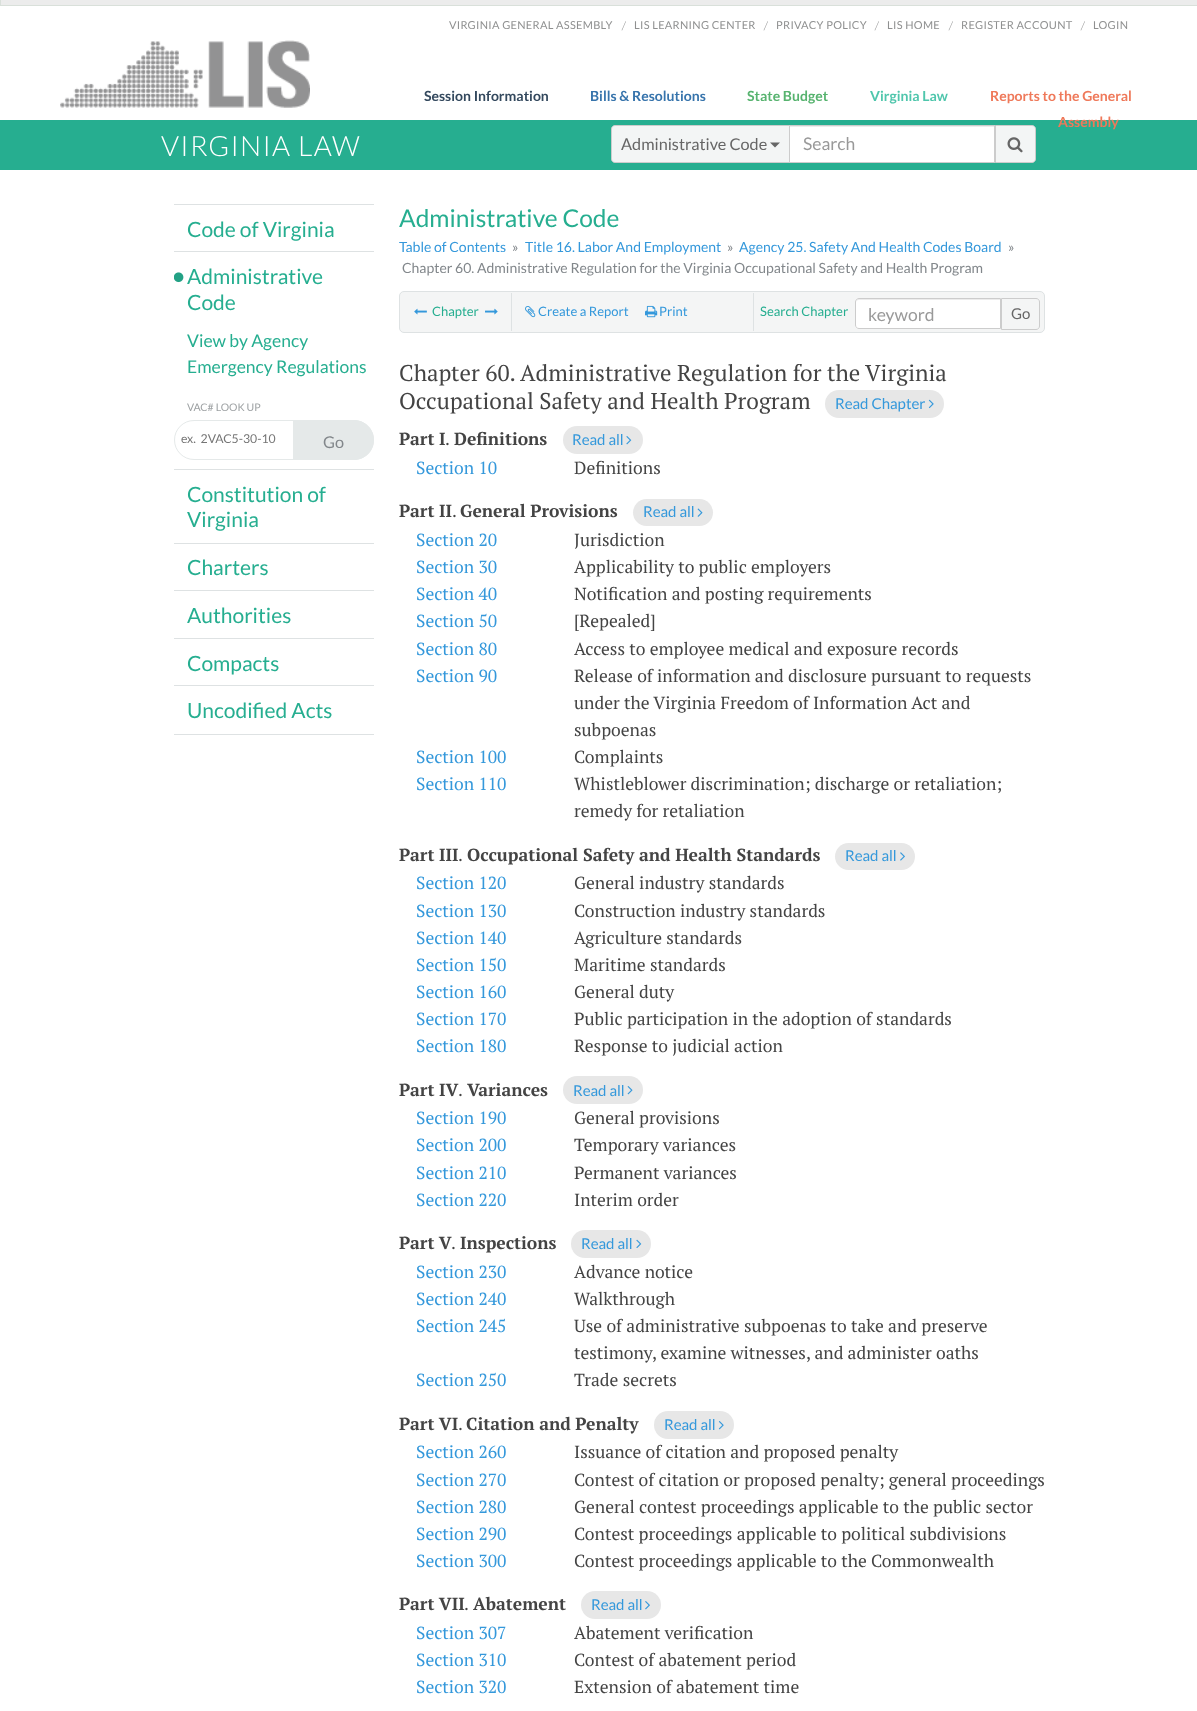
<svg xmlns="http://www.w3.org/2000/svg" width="1197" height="1711">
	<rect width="100%" height="100%" fill="#FFFFFF" />
	<rect x="0.5" y="-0.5" width="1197" height="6" fill="#ECECEC" stroke="#D9E0DA" />
	<text x="449" y="29" font-family="Lato" font-size="11" letter-spacing="0.3" fill="#8F9090">VIRGINIA GENERAL ASSEMBLY</text>
	<text x="622" y="29" font-family="PT Serif" font-size="11" fill="#8F9090">/</text>
	<text x="634" y="29" font-family="Lato" font-size="11" letter-spacing="0.3" fill="#8F9090">LIS LEARNING CENTER</text>
	<text x="764" y="29" font-family="PT Serif" font-size="11" fill="#8F9090">/</text>
	<text x="776" y="29" font-family="Lato" font-size="11" letter-spacing="0.3" fill="#8F9090">PRIVACY POLICY</text>
	<text x="875" y="29" font-family="PT Serif" font-size="11" fill="#8F9090">/</text>
	<text x="887" y="29" font-family="Lato" font-size="11" letter-spacing="0.3" fill="#8F9090">LIS HOME</text>
	<text x="949" y="29" font-family="PT Serif" font-size="11" fill="#8F9090">/</text>
	<text x="961" y="29" font-family="Lato" font-size="11" letter-spacing="0.3" fill="#8F9090">REGISTER ACCOUNT</text>
	<text x="1081" y="29" font-family="PT Serif" font-size="11" fill="#8F9090">/</text>
	<text x="1093" y="29" font-family="Lato" font-size="11" letter-spacing="0.3" fill="#8F9090">LOGIN</text>
	<image x="60" y="40" width="250" height="68" href="assets/img1.png" />
	<text x="424" y="101" font-family="Lato" font-size="14" font-weight="700" fill="#34495E">Session Information</text>
	<text x="590" y="101" font-family="Lato" font-size="14" font-weight="700" fill="#3774AC">Bills &amp; Resolutions</text>
	<text x="747" y="101" font-family="Lato" font-size="14" font-weight="700" fill="#57B36F">State Budget</text>
	<text x="870" y="101" font-family="Lato" font-size="14" font-weight="700" fill="#4FC6AC">Virginia Law</text>
	<text x="990" y="101" font-family="Lato" font-size="14" font-weight="700" fill="#EF795A">Reports to the General</text>
	<rect x="0" y="120" width="1197" height="50" fill="#26AE90" />
	<text x="1058" y="127" font-family="Lato" font-size="14" font-weight="700" fill="#EF795A">Assembly</text>
	<text x="161" y="156" font-family="Lato" font-size="28" font-weight="300" letter-spacing="1.25" fill="#FFFFFF">VIRGINIA LAW</text>
	<rect x="790" y="127" width="204" height="35" fill="#FFFFFF" />
	<rect x="790" y="126" width="204" height="1" fill="#ECECEC" />
	<rect x="789.5" y="125.5" width="205" height="37" fill="none" stroke="#CCCCCC" />
	<path d="M615 125.5H789.5V162.5H615C613 162.5 611.5 161 611.5 159V129C611.5 127 613 125.5 615 125.5Z" fill="#F3F5F5" stroke="#CCCCCC" />
	<text x="621" y="150" font-family="Lato" font-size="16.25" fill="#666666">Administrative Code</text>
	<path d="M770 142.5H780L775 147.5Z" fill="#666666" />
	<text x="803" y="150" font-family="Lato" font-size="17.5" fill="#999999">Search</text>
	<path d="M995.5 125.5H1032C1034 125.5 1035.5 127 1035.5 129V159C1035.5 161 1034 162.5 1032 162.5H995.5Z" fill="#F3F5F5" stroke="#CCCCCC" />
	<image x="1007" y="137" width="16" height="16" href="assets/img2.png" />
	<rect x="174" y="204" width="200" height="1" fill="#DEE2E3" />
	<text x="187" y="237" font-family="Lato" font-size="21" fill="#26AE90">Code of Virginia</text>
	<rect x="174" y="251" width="200" height="1" fill="#DEE2E3" />
	<image x="174" y="272" width="10" height="11" href="assets/img3.png" />
	<g font-family="Lato" font-size="21" fill="#26AE90">
		<text x="187" y="284">Administrative</text>
		<text x="187" y="310">Code</text>
	</g>
	<g font-family="Lato" font-size="17.5" fill="#26AE90">
		<text x="187" y="347">View by Agency</text>
		<text x="187" y="373">Emergency Regulations</text>
	</g>
	<text x="187" y="411" font-family="Lato" font-size="10.5" fill="#9DA1A3">VAC# LOOK UP</text>
	<rect x="174.5" y="420.5" width="199" height="39" rx="19.5" fill="none" stroke="#E5E9E9" />
	<text x="181" y="443" font-family="Lato" font-size="12.25" fill="#757575" xml:space="preserve">ex.  2VAC5-30-10</text>
	<path d="M293 420H354C365 420 374 429 374 440C374 451 365 460 354 460H293Z" fill="#E5E9E9" />
	<text x="323" y="448" font-family="Lato" font-size="16.25" fill="#82878B">Go</text>
	<rect x="174" y="469" width="200" height="1" fill="#DEE2E3" />
	<g font-family="Lato" font-size="21" fill="#26AE90">
		<text x="187" y="502">Constitution of</text>
		<text x="187" y="527">Virginia</text>
	</g>
	<rect x="174" y="543" width="200" height="1" fill="#DEE2E3" />
	<text x="187" y="575" font-family="Lato" font-size="21" fill="#26AE90">Charters</text>
	<rect x="174" y="590" width="200" height="1" fill="#DEE2E3" />
	<text x="187" y="623" font-family="Lato" font-size="21" fill="#26AE90">Authorities</text>
	<rect x="174" y="638" width="200" height="1" fill="#DEE2E3" />
	<text x="187" y="671" font-family="Lato" font-size="21" fill="#26AE90">Compacts</text>
	<rect x="174" y="685" width="200" height="1" fill="#DEE2E3" />
	<rect x="174" y="734" width="200" height="1" fill="#DEE2E3" />
	<text x="187" y="718" font-family="Lato" font-size="21" fill="#26AE90">Uncodified Acts</text>
	<text x="399" y="227" font-family="Lato" font-size="24.5" fill="#26AE90">Administrative Code</text>
	<text x="399" y="252" font-family="Lato" font-size="14" fill="#3498DB">Table of Contents</text>
	<text x="512" y="252" font-family="Lato" font-size="14" fill="#82878B">»</text>
	<text x="525" y="252" font-family="Lato" font-size="14" fill="#3498DB">Title 16. Labor And Employment</text>
	<text x="727" y="252" font-family="Lato" font-size="14" fill="#82878B">»</text>
	<text x="739" y="252" font-family="Lato" font-size="14" fill="#3498DB">Agency 25. Safety And Health Codes Board</text>
	<g font-family="Lato" font-size="14" fill="#82878B">
		<text x="1008" y="252">»</text>
		<text x="402" y="273">Chapter 60. Administrative Regulation for the Virginia Occupational Safety and Health Program</text>
	</g>
	<rect x="399.5" y="291.5" width="645" height="41" rx="4.5" fill="#F4F5F5" stroke="#DEE2E3" />
	<rect x="511" y="293" width="1" height="38" fill="#DEE2E3" />
	<image x="414" y="308" width="13" height="7" href="assets/img4.png" />
	<text x="432" y="316" font-family="Lato" font-size="13" fill="#26AE90">Chapter</text>
	<image x="485" y="308" width="13" height="7" href="assets/img5.png" />
	<image x="525" y="306" width="11" height="12" href="assets/img6.png" />
	<text x="538" y="316" font-family="Lato" font-size="13" fill="#3498DB">Create a Report</text>
	<image x="645" y="305" width="13" height="13" href="assets/img7.png" />
	<text x="659" y="316" font-family="Lato" font-size="13" fill="#3498DB">Print</text>
	<rect x="753" y="293" width="1" height="38" fill="#DEE2E3" />
	<text x="760" y="316" font-family="Lato" font-size="13" fill="#26AE90">Search Chapter</text>
	<path d="M859 298H1001V329H859C857 329 855 327 855 325V302C855 300 857 298 859 298Z" fill="#FFFFFF" />
	<path d="M859 300H1000V299H858C857 299 856 300 856 302C856 301 857 300 859 300Z" fill="#ECECEC" />
	<path d="M859 298.5H1000.5V328.5H859C857 328.5 855.5 327 855.5 325V302C855.5 300 857 298.5 859 298.5Z" fill="none" stroke="#CCCCCC" />
	<text x="868" y="321" font-family="Lato" font-size="17.5" fill="#999999">keyword</text>
	<path d="M1001.5 298.5H1036C1038 298.5 1039.5 300 1039.5 302V326C1039.5 328 1038 329.5 1036 329.5H1001.5Z" fill="none" stroke="#CCCCCC" />
	<text x="1011" y="319" font-family="Lato" font-size="15" fill="#666666">Go</text>
	<g font-family="PT Serif" font-size="22.75" fill="#444444">
		<text x="399" y="381">Chapter 60. Administrative Regulation for the Virginia</text>
		<text x="399" y="409">Occupational Safety and Health Program</text>
	</g>
	<rect x="825" y="390" width="119" height="28" rx="14" fill="#E7E7E7" />
	<text x="835" y="409" font-family="Lato" font-size="15" fill="#3498DB">Read Chapter</text>
	<image x="928" y="399" width="6" height="10" href="assets/img8.png" />
	<text x="399" y="445" font-family="PT Serif" font-size="17.5" font-weight="700" fill="#444444">Part I</text>
	<text x="445" y="445" font-family="PT Serif" font-size="17.5" fill="#444444">.</text>
	<text x="454" y="445" font-family="PT Serif" font-size="17.5" font-weight="700" fill="#444444">Definitions</text>
	<rect x="563" y="426" width="80" height="28" rx="14" fill="#E7E7E7" />
	<text x="572" y="445" font-family="Lato" font-size="15" fill="#3498DB">Read all</text>
	<image x="626" y="436" width="6" height="9" href="assets/img9.png" />
	<text x="416" y="474" font-family="PT Serif" font-size="17.5" fill="#3498DB">Section 10</text>
	<text x="574" y="474" font-family="PT Serif" font-size="17.5" fill="#444444">Definitions</text>
	<text x="399" y="517" font-family="PT Serif" font-size="17.5" font-weight="700" fill="#444444">Part II</text>
	<text x="452" y="517" font-family="PT Serif" font-size="17.5" fill="#444444">.</text>
	<text x="460" y="517" font-family="PT Serif" font-size="17.5" font-weight="700" fill="#444444">General Provisions</text>
	<rect x="633" y="499" width="80" height="27" rx="13.5" fill="#E7E7E7" />
	<text x="643" y="517" font-family="Lato" font-size="15" fill="#3498DB">Read all</text>
	<image x="697" y="508" width="6" height="9" href="assets/img10.png" />
	<text x="416" y="546" font-family="PT Serif" font-size="17.5" fill="#3498DB">Section 20</text>
	<text x="574" y="546" font-family="PT Serif" font-size="17.5" fill="#444444">Jurisdiction</text>
	<text x="416" y="573" font-family="PT Serif" font-size="17.5" fill="#3498DB">Section 30</text>
	<text x="574" y="573" font-family="PT Serif" font-size="17.5" fill="#444444">Applicability to public employers</text>
	<text x="416" y="600" font-family="PT Serif" font-size="17.5" fill="#3498DB">Section 40</text>
	<text x="574" y="600" font-family="PT Serif" font-size="17.5" fill="#444444">Notification and posting requirements</text>
	<text x="416" y="627" font-family="PT Serif" font-size="17.5" fill="#3498DB">Section 50</text>
	<text x="574" y="627" font-family="PT Serif" font-size="17.5" fill="#444444">[Repealed]</text>
	<text x="416" y="655" font-family="PT Serif" font-size="17.5" fill="#3498DB">Section 80</text>
	<text x="574" y="655" font-family="PT Serif" font-size="17.5" fill="#444444">Access to employee medical and exposure records</text>
	<text x="416" y="682" font-family="PT Serif" font-size="17.5" fill="#3498DB">Section 90</text>
	<g font-family="PT Serif" font-size="17.5" fill="#444444">
		<text x="574" y="682">Release of information and disclosure pursuant to requests</text>
		<text x="574" y="709">under the Virginia Freedom of Information Act and</text>
		<text x="574" y="736">subpoenas</text>
	</g>
	<text x="416" y="763" font-family="PT Serif" font-size="17.5" fill="#3498DB">Section 100</text>
	<text x="574" y="763" font-family="PT Serif" font-size="17.5" fill="#444444">Complaints</text>
	<text x="416" y="790" font-family="PT Serif" font-size="17.5" fill="#3498DB">Section 110</text>
	<g font-family="PT Serif" font-size="17.5" fill="#444444">
		<text x="574" y="790">Whistleblower discrimination; discharge or retaliation;</text>
		<text x="574" y="817">remedy for retaliation</text>
	</g>
	<text x="399" y="861" font-family="PT Serif" font-size="17.5" font-weight="700" fill="#444444">Part III</text>
	<text x="458" y="861" font-family="PT Serif" font-size="17.5" fill="#444444">.</text>
	<text x="467" y="861" font-family="PT Serif" font-size="17.5" font-weight="700" fill="#444444">Occupational Safety and Health Standards</text>
	<rect x="835" y="843" width="80" height="27" rx="13.5" fill="#E7E7E7" />
	<text x="845" y="861" font-family="Lato" font-size="15" fill="#3498DB">Read all</text>
	<image x="900" y="852" width="5" height="9" href="assets/img11.png" />
	<text x="416" y="889" font-family="PT Serif" font-size="17.5" fill="#3498DB">Section 120</text>
	<text x="574" y="889" font-family="PT Serif" font-size="17.5" fill="#444444">General industry standards</text>
	<text x="416" y="917" font-family="PT Serif" font-size="17.5" fill="#3498DB">Section 130</text>
	<text x="574" y="917" font-family="PT Serif" font-size="17.5" fill="#444444">Construction industry standards</text>
	<text x="416" y="944" font-family="PT Serif" font-size="17.5" fill="#3498DB">Section 140</text>
	<text x="574" y="944" font-family="PT Serif" font-size="17.5" fill="#444444">Agriculture standards</text>
	<text x="416" y="971" font-family="PT Serif" font-size="17.5" fill="#3498DB">Section 150</text>
	<text x="574" y="971" font-family="PT Serif" font-size="17.5" fill="#444444">Maritime standards</text>
	<text x="416" y="998" font-family="PT Serif" font-size="17.5" fill="#3498DB">Section 160</text>
	<text x="574" y="998" font-family="PT Serif" font-size="17.5" fill="#444444">General duty</text>
	<text x="416" y="1025" font-family="PT Serif" font-size="17.5" fill="#3498DB">Section 170</text>
	<text x="574" y="1025" font-family="PT Serif" font-size="17.5" fill="#444444">Public participation in the adoption of standards</text>
	<text x="416" y="1052" font-family="PT Serif" font-size="17.5" fill="#3498DB">Section 180</text>
	<text x="574" y="1052" font-family="PT Serif" font-size="17.5" fill="#444444">Response to judicial action</text>
	<text x="399" y="1096" font-family="PT Serif" font-size="17.5" font-weight="700" fill="#444444">Part IV</text>
	<text x="458" y="1096" font-family="PT Serif" font-size="17.5" fill="#444444">.</text>
	<text x="467" y="1096" font-family="PT Serif" font-size="17.5" font-weight="700" fill="#444444">Variances</text>
	<rect x="563" y="1076" width="80" height="28" rx="14" fill="#E7E7E7" />
	<text x="573" y="1096" font-family="Lato" font-size="15" fill="#3498DB">Read all</text>
	<image x="627" y="1086" width="6" height="9" href="assets/img12.png" />
	<text x="416" y="1124" font-family="PT Serif" font-size="17.5" fill="#3498DB">Section 190</text>
	<text x="574" y="1124" font-family="PT Serif" font-size="17.5" fill="#444444">General provisions</text>
	<text x="416" y="1151" font-family="PT Serif" font-size="17.5" fill="#3498DB">Section 200</text>
	<text x="574" y="1151" font-family="PT Serif" font-size="17.5" fill="#444444">Temporary variances</text>
	<text x="416" y="1179" font-family="PT Serif" font-size="17.5" fill="#3498DB">Section 210</text>
	<text x="574" y="1179" font-family="PT Serif" font-size="17.5" fill="#444444">Permanent variances</text>
	<text x="416" y="1206" font-family="PT Serif" font-size="17.5" fill="#3498DB">Section 220</text>
	<text x="574" y="1206" font-family="PT Serif" font-size="17.5" fill="#444444">Interim order</text>
	<text x="399" y="1249" font-family="PT Serif" font-size="17.5" font-weight="700" fill="#444444">Part V</text>
	<text x="451" y="1249" font-family="PT Serif" font-size="17.5" fill="#444444">.</text>
	<text x="460" y="1249" font-family="PT Serif" font-size="17.5" font-weight="700" fill="#444444">Inspections</text>
	<rect x="571" y="1230" width="80" height="28" rx="14" fill="#E7E7E7" />
	<text x="581" y="1249" font-family="Lato" font-size="15" fill="#3498DB">Read all</text>
	<image x="636" y="1239" width="6" height="9" href="assets/img13.png" />
	<text x="416" y="1278" font-family="PT Serif" font-size="17.5" fill="#3498DB">Section 230</text>
	<text x="574" y="1278" font-family="PT Serif" font-size="17.5" fill="#444444">Advance notice</text>
	<text x="416" y="1305" font-family="PT Serif" font-size="17.5" fill="#3498DB">Section 240</text>
	<text x="574" y="1305" font-family="PT Serif" font-size="17.5" fill="#444444">Walkthrough</text>
	<text x="416" y="1332" font-family="PT Serif" font-size="17.5" fill="#3498DB">Section 245</text>
	<g font-family="PT Serif" font-size="17.5" fill="#444444">
		<text x="574" y="1332">Use of administrative subpoenas to take and preserve</text>
		<text x="574" y="1359">testimony, examine witnesses, and administer oaths</text>
	</g>
	<text x="416" y="1386" font-family="PT Serif" font-size="17.5" fill="#3498DB">Section 250</text>
	<text x="574" y="1386" font-family="PT Serif" font-size="17.5" fill="#444444">Trade secrets</text>
	<text x="399" y="1430" font-family="PT Serif" font-size="17.5" font-weight="700" fill="#444444">Part VI</text>
	<text x="458" y="1430" font-family="PT Serif" font-size="17.5" fill="#444444">.</text>
	<text x="466" y="1430" font-family="PT Serif" font-size="17.5" font-weight="700" fill="#444444">Citation and Penalty</text>
	<rect x="654" y="1411" width="80" height="28" rx="14" fill="#E7E7E7" />
	<text x="664" y="1430" font-family="Lato" font-size="15" fill="#3498DB">Read all</text>
	<image x="718" y="1421" width="6" height="9" href="assets/img14.png" />
	<text x="416" y="1458" font-family="PT Serif" font-size="17.5" fill="#3498DB">Section 260</text>
	<text x="574" y="1458" font-family="PT Serif" font-size="17.5" fill="#444444">Issuance of citation and proposed penalty</text>
	<text x="416" y="1486" font-family="PT Serif" font-size="17.5" fill="#3498DB">Section 270</text>
	<text x="574" y="1486" font-family="PT Serif" font-size="17.5" fill="#444444">Contest of citation or proposed penalty; general proceedings</text>
	<text x="416" y="1513" font-family="PT Serif" font-size="17.5" fill="#3498DB">Section 280</text>
	<text x="574" y="1513" font-family="PT Serif" font-size="17.5" fill="#444444">General contest proceedings applicable to the public sector</text>
	<text x="416" y="1540" font-family="PT Serif" font-size="17.5" fill="#3498DB">Section 290</text>
	<text x="574" y="1540" font-family="PT Serif" font-size="17.5" fill="#444444">Contest proceedings applicable to political subdivisions</text>
	<text x="416" y="1567" font-family="PT Serif" font-size="17.5" fill="#3498DB">Section 300</text>
	<text x="574" y="1567" font-family="PT Serif" font-size="17.5" fill="#444444">Contest proceedings applicable to the Commonwealth</text>
	<text x="399" y="1610" font-family="PT Serif" font-size="17.5" font-weight="700" fill="#444444">Part VII</text>
	<text x="464" y="1610" font-family="PT Serif" font-size="17.5" fill="#444444">.</text>
	<text x="473" y="1610" font-family="PT Serif" font-size="17.5" font-weight="700" fill="#444444">Abatement</text>
	<rect x="581" y="1591" width="80" height="28" rx="14" fill="#E7E7E7" />
	<text x="591" y="1610" font-family="Lato" font-size="15" fill="#3498DB">Read all</text>
	<image x="645" y="1601" width="5" height="9" href="assets/img15.png" />
	<text x="416" y="1639" font-family="PT Serif" font-size="17.5" fill="#3498DB">Section 307</text>
	<text x="574" y="1639" font-family="PT Serif" font-size="17.5" fill="#444444">Abatement verification</text>
	<text x="416" y="1666" font-family="PT Serif" font-size="17.5" fill="#3498DB">Section 310</text>
	<text x="574" y="1666" font-family="PT Serif" font-size="17.5" fill="#444444">Contest of abatement period</text>
	<text x="416" y="1693" font-family="PT Serif" font-size="17.5" fill="#3498DB">Section 320</text>
	<text x="574" y="1693" font-family="PT Serif" font-size="17.5" fill="#444444">Extension of abatement time</text>
</svg>
